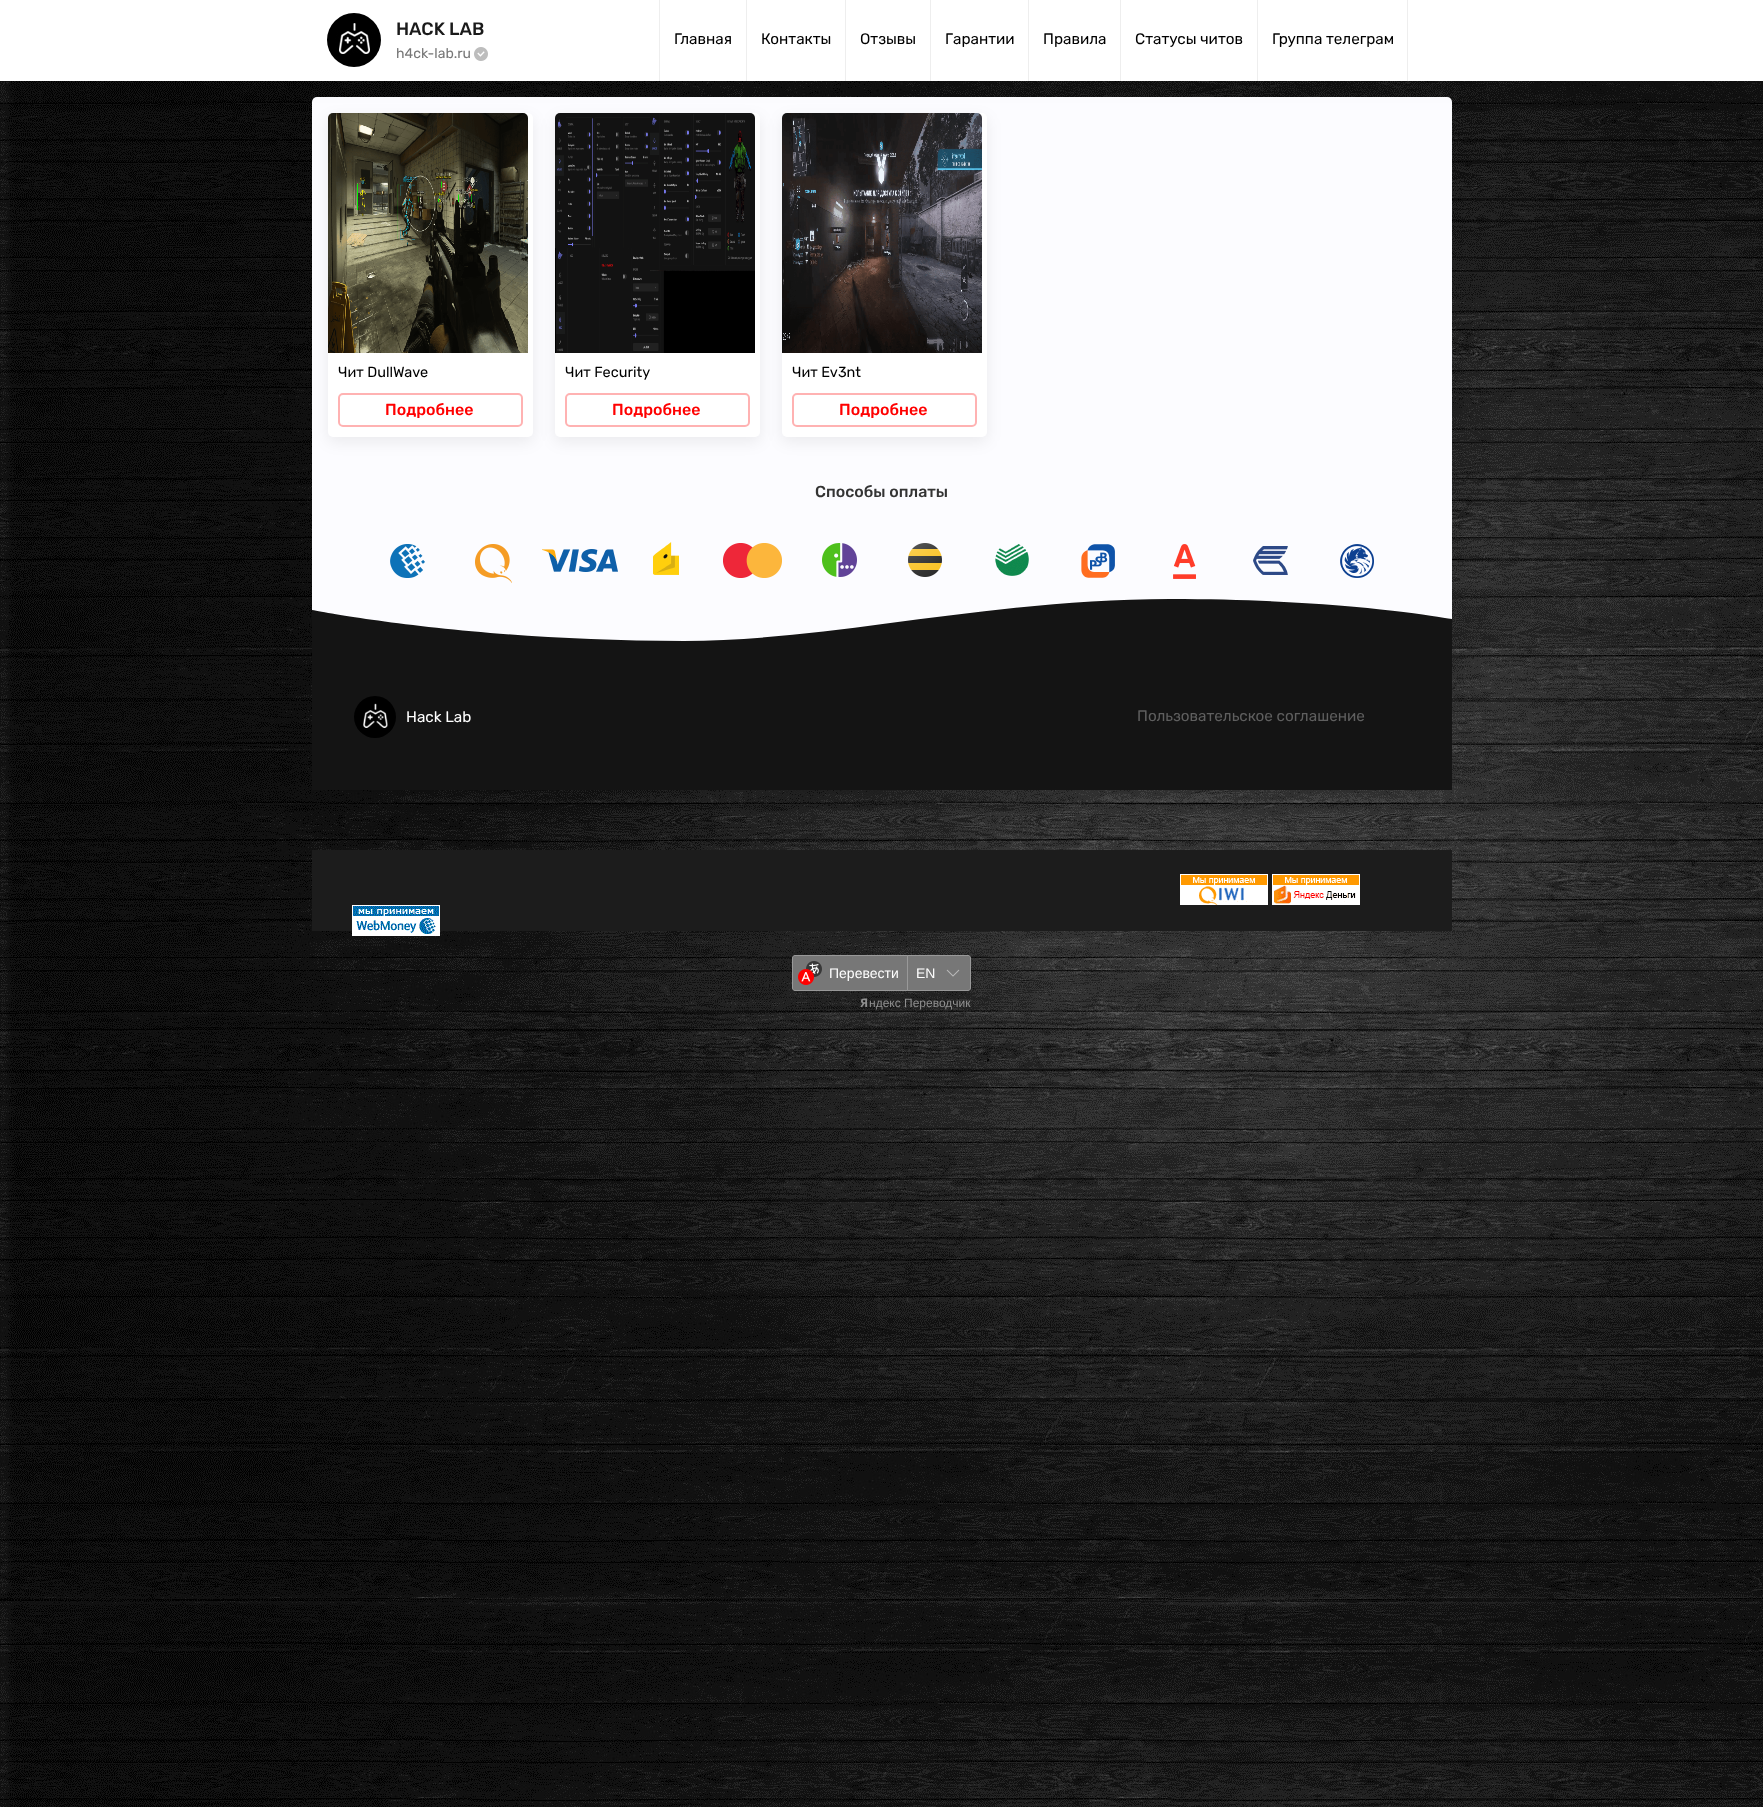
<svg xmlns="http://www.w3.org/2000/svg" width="1763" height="1807">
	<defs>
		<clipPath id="clip1"><rect x="312" y="590" width="1140" height="200" /></clipPath>
	</defs>
	<rect width="100%" height="100%" fill="#FFFFFF" />
	<image x="0" y="81" width="1763" height="1726" href="assets/img1.png" />
	<rect x="312" y="104" width="1140" height="693" rx="5" fill="#000000" fill-opacity="0.1" filter="blur(20px)" />
	<rect x="312" y="97" width="1140" height="693" rx="5" fill="#FCFCFF" />
	<rect x="0" y="5" width="1763" height="81" fill="#000000" fill-opacity="0.06" filter="blur(10px)" />
	<rect x="0" y="0" width="1763" height="81" fill="#FFFFFF" />
	<image x="327" y="13" width="54" height="54" href="assets/img2.png" />
	<text x="396" y="35" font-family="Rubik" font-size="18" font-weight="500" fill="#1A1A1A">HACK LAB</text>
	<text x="396" y="58" font-family="Rubik" font-size="14" fill="#777777">h4ck-lab.ru</text>
	<image x="474" y="47" width="14" height="14" href="assets/img3.png" />
	<rect x="659" y="0" width="1" height="81" fill="#EEEEEE" />
	<text x="674" y="44" font-family="Rubik" font-size="15.25" fill="#000000">Главная</text>
	<rect x="746" y="0" width="1" height="81" fill="#EEEEEE" />
	<text x="761" y="44" font-family="Rubik" font-size="15.25" fill="#000000">Контакты</text>
	<rect x="845" y="0" width="1" height="81" fill="#EEEEEE" />
	<text x="860" y="44" font-family="Rubik" font-size="15.25" fill="#000000">Отзывы</text>
	<rect x="930" y="0" width="1" height="81" fill="#EEEEEE" />
	<text x="945" y="44" font-family="Rubik" font-size="15.25" fill="#000000">Гарантии</text>
	<rect x="1028" y="0" width="1" height="81" fill="#EEEEEE" />
	<text x="1043" y="44" font-family="Rubik" font-size="15.25" fill="#000000">Правила</text>
	<rect x="1120" y="0" width="1" height="81" fill="#EEEEEE" />
	<text x="1135" y="44" font-family="Rubik" font-size="15.25" fill="#000000">Статусы читов</text>
	<rect x="1257" y="0" width="1" height="81" fill="#EEEEEE" />
	<text x="1272" y="44" font-family="Rubik" font-size="15.25" fill="#000000">Группа телеграм</text>
	<rect x="1407" y="0" width="1" height="81" fill="#EEEEEE" />
	<rect x="328" y="118" width="205" height="324" rx="5" fill="#000000" fill-opacity="0.07" filter="blur(7.5px)" />
	<rect x="328" y="113" width="205" height="324" rx="5" fill="#FFFFFF" />
	<image x="328" y="113" width="200" height="240" href="assets/img4.png" />
	<text x="338" y="377" font-family="Rubik" font-size="14.5" fill="#000000">Чит DullWave</text>
	<rect x="339" y="394" width="183" height="32" rx="4" fill="none" stroke="#FFB2B2" stroke-width="2" />
	<text x="385" y="415" font-family="Rubik" font-size="16" font-weight="500" fill="#FF0000">Подробнее</text>
	<rect x="555" y="118" width="205" height="324" rx="5" fill="#000000" fill-opacity="0.07" filter="blur(7.5px)" />
	<rect x="555" y="113" width="205" height="324" rx="5" fill="#FFFFFF" />
	<image x="555" y="113" width="200" height="240" href="assets/img5.png" />
	<text x="565" y="377" font-family="Rubik" font-size="14.5" fill="#000000">Чит Fecurity</text>
	<rect x="566" y="394" width="183" height="32" rx="4" fill="none" stroke="#FFB2B2" stroke-width="2" />
	<text x="612" y="415" font-family="Rubik" font-size="16" font-weight="500" fill="#FF0000">Подробнее</text>
	<rect x="782" y="118" width="205" height="324" rx="5" fill="#000000" fill-opacity="0.07" filter="blur(7.5px)" />
	<rect x="782" y="113" width="205" height="324" rx="5" fill="#FFFFFF" />
	<image x="782" y="113" width="200" height="240" href="assets/img6.png" />
	<text x="792" y="377" font-family="Rubik" font-size="14.5" fill="#000000">Чит Ev3nt</text>
	<rect x="793" y="394" width="183" height="32" rx="4" fill="none" stroke="#FFB2B2" stroke-width="2" />
	<text x="839" y="415" font-family="Rubik" font-size="16" font-weight="500" fill="#FF0000">Подробнее</text>
	<text x="815" y="497" font-family="Rubik" font-size="16" font-weight="500" fill="#343434">Способы оплаты</text>
	<image x="390" y="542" width="984" height="41" href="assets/img7.png" />
	<g clip-path="url(#clip1)">
		<path d="M1170 599C989 599 831 641 684 641C463 641 307 609 307 609V1148H1457V620C1457 620 1354 599 1170 599Z" fill="#141414" />
	</g>
	<image x="354" y="696" width="42" height="42" href="assets/img8.png" />
	<text x="406" y="722" font-family="Rubik" font-size="15.25" fill="#FFFFFF">Hack Lab</text>
	<text x="1137" y="721" font-family="Rubik" font-size="15.25" fill="#5F5F5F">Пользовательское соглашение</text>
	<rect x="312" y="850" width="1140" height="81" fill="#1C1C1C" />
	<image x="1180" y="874" width="88" height="31" href="assets/img9.png" />
	<image x="1272" y="874" width="88" height="31" href="assets/img10.png" />
	<image x="352" y="905" width="88" height="31" href="assets/img11.png" />
	<path d="M795 955.5H907.5V990.5H795C793.5 990.5 792.5 989.5 792.5 988V958C792.5 956.5 793.5 955.5 795 955.5Z" fill="#777777" stroke="#999999" />
	<image x="798" y="961" width="24" height="24" href="assets/img12.png" />
	<text x="829" y="978" font-family="Liberation Sans" font-size="14" fill="#FFFFFF">Перевести</text>
	<path d="M907.5 955.5H968C969.5 955.5 970.5 956.5 970.5 958V988C970.5 989.5 969.5 990.5 968 990.5H907.5Z" fill="#777777" stroke="#999999" />
	<text x="916" y="978" font-family="Liberation Sans" font-size="14" fill="#FFFFFF">EN</text>
	<image x="946" y="969" width="14" height="8" href="assets/img13.png" />
	<text x="860" y="1007" font-family="Noto Sans" font-size="12" font-weight="700" fill="#909090">Я</text>
	<text x="869" y="1007" font-family="Liberation Sans" font-size="12" fill="#909090">ндекс Переводчик</text>
</svg>
